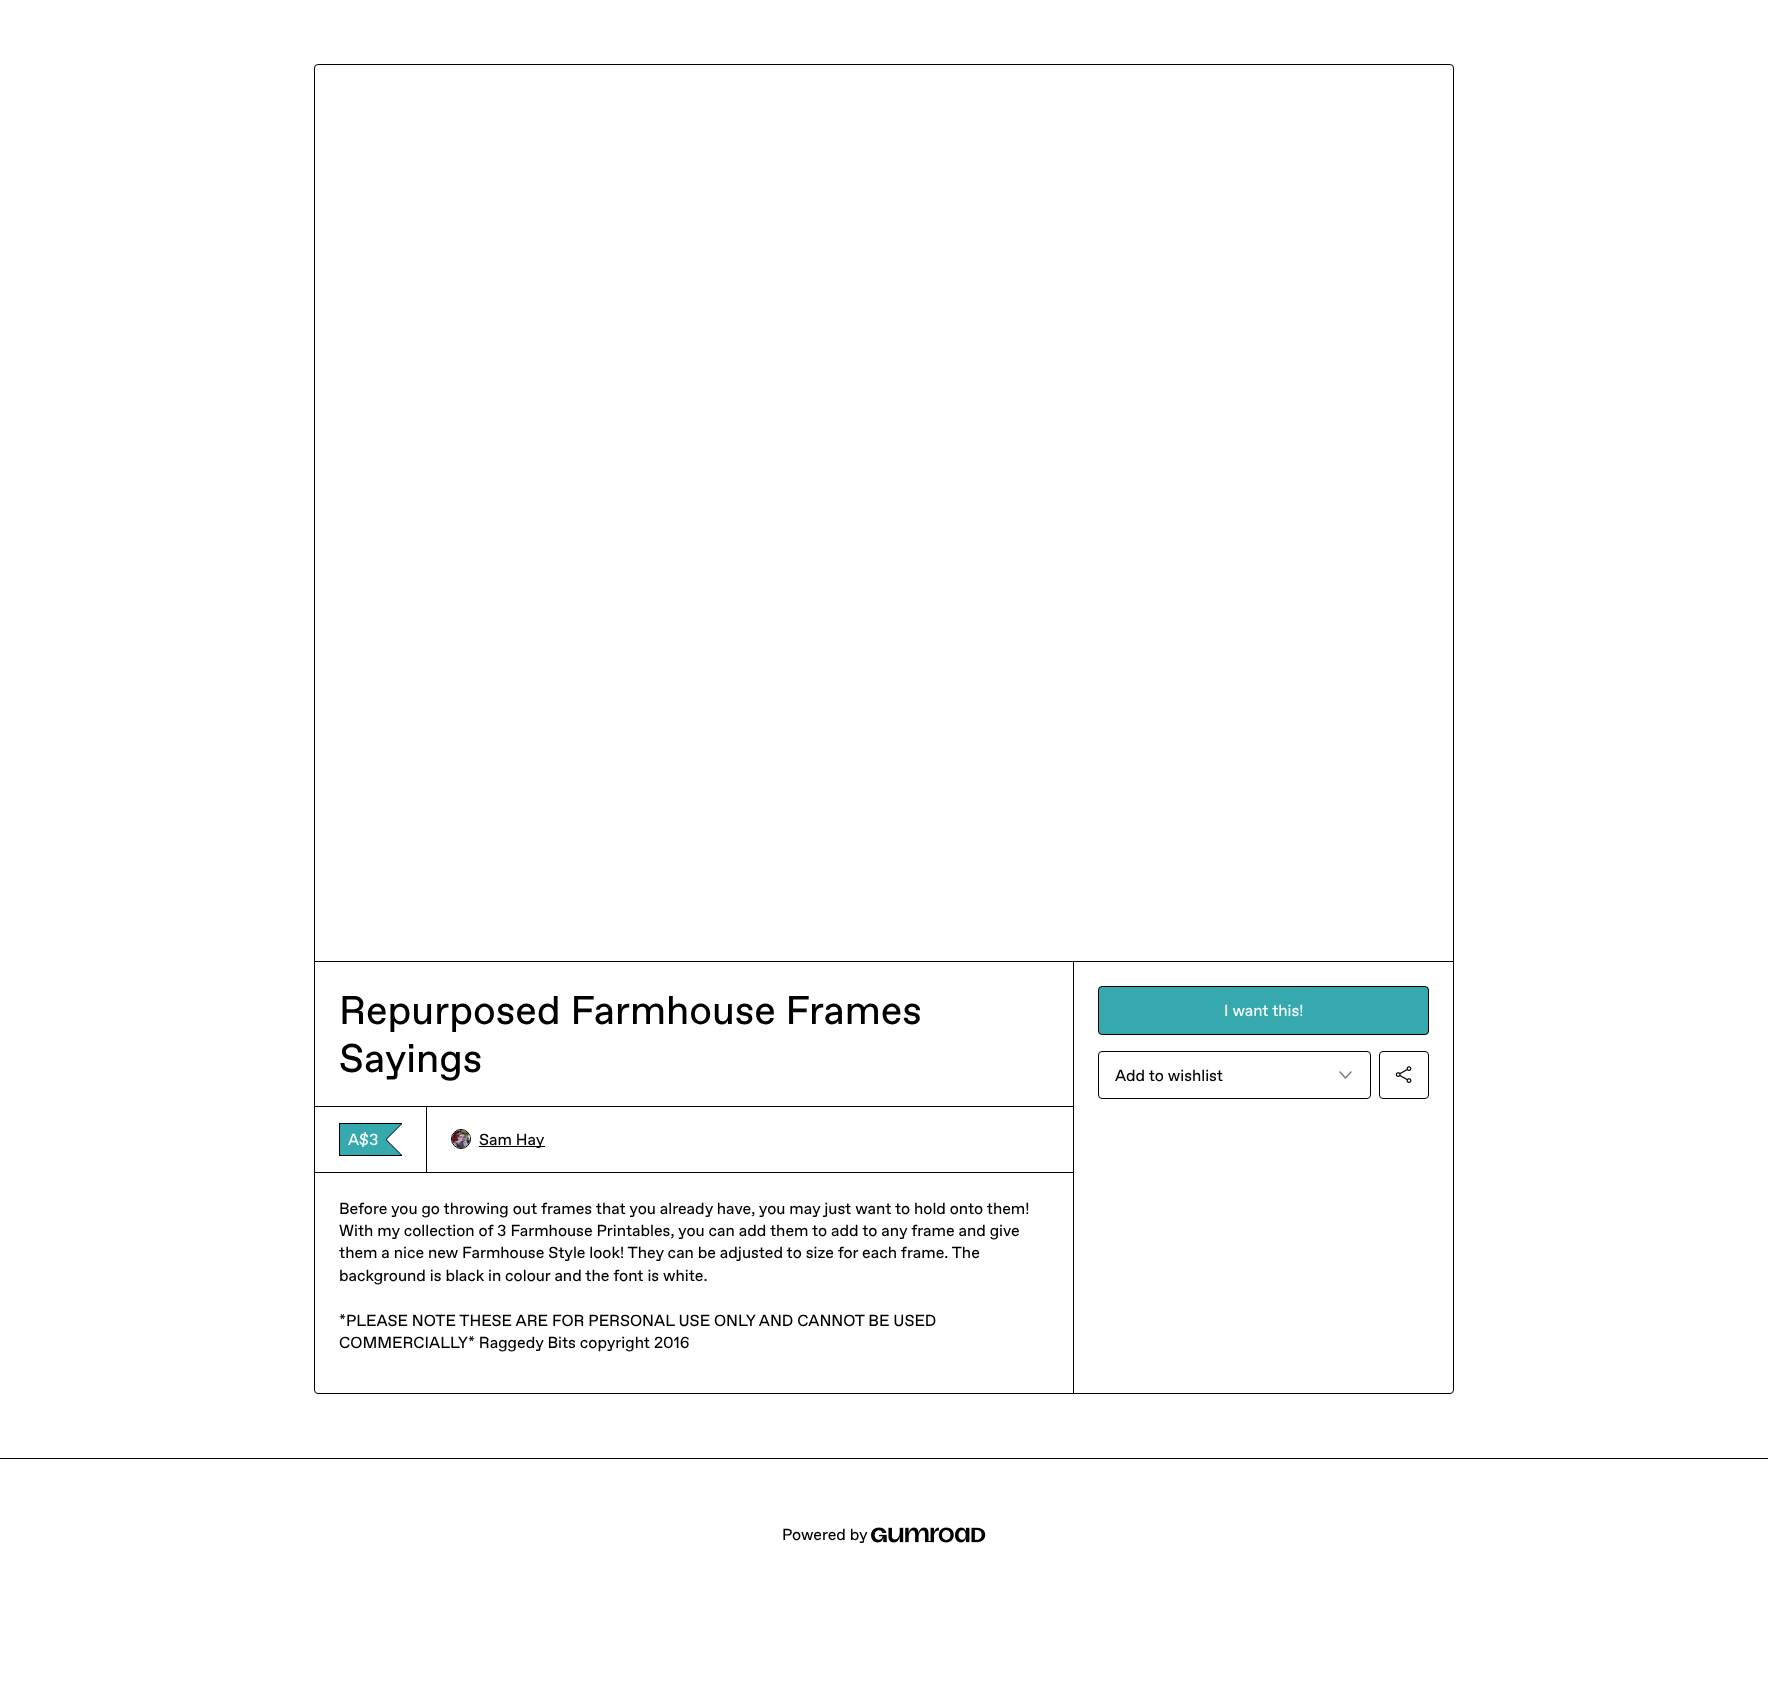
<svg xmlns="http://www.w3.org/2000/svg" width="1768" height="1693">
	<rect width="100%" height="100%" fill="#FFFFFF" />
	<rect x="0" y="1458" width="1768" height="1" fill="#000000" />
	<rect x="314.5" y="64.5" width="1139" height="1329" rx="3.5" fill="none" stroke="#000000" />
	<rect x="315" y="961" width="1138" height="1" fill="#000000" />
	<rect x="1073" y="962" width="1" height="431" fill="#000000" />
	<g font-family="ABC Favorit" font-size="40" fill="#000000">
		<text x="339" y="1024">Repurposed Farmhouse Frames</text>
		<text x="339" y="1072">Sayings</text>
	</g>
	<rect x="427" y="1106" width="646" height="1" fill="#000000" />
	<rect x="314.5" y="1106.5" width="112" height="66" fill="none" stroke="#000000" />
	<rect x="339" y="1123" width="63" height="1" fill="#000000" />
	<rect x="339" y="1155" width="63" height="1" fill="#000000" />
	<rect x="339" y="1123" width="1" height="33" fill="#000000" />
	<rect x="340" y="1124" width="46" height="31" fill="#36A9AE" />
	<path d="M386 1124H402L387 1139ZM402 1155H386L387 1140Z" fill="#000000" />
	<rect x="386" y="1138" width="1" height="3" fill="#000000" />
	<path d="M385 1124H401L386 1139ZM401 1155H385L386 1140Z" fill="#36A9AE" />
	<text x="348" y="1145" font-family="ABC Favorit" font-size="16" fill="#FFFFFF">A$3</text>
	<circle cx="461" cy="1139" r="9.5" fill="none" stroke="#000000" />
	<image x="452" y="1130" width="18" height="18" href="assets/img1.png" />
	<rect x="479" y="1146" width="66" height="1" fill="#000000" />
	<text x="479" y="1145" font-family="ABC Favorit" font-size="16" fill="#000000">Sam Hay</text>
	<rect x="427" y="1172" width="646" height="1" fill="#000000" />
	<g font-family="ABC Favorit" font-size="16" fill="#000000">
		<text x="339" y="1214">Before you go throwing out frames that you already have, you may just want to hold onto them!</text>
		<text x="339" y="1236">With my collection of 3 Farmhouse Printables, you can add them to add to any frame and give</text>
		<text x="339" y="1258">them a nice new Farmhouse Style look! They can be adjusted to size for each frame. The</text>
		<text x="339" y="1281">background is black in colour and the font is white.</text>
		<text x="339" y="1326">*PLEASE NOTE THESE ARE FOR PERSONAL USE ONLY AND CANNOT BE USED</text>
		<text x="339" y="1348">COMMERCIALLY* Raggedy Bits copyright 2016</text>
	</g>
	<rect x="1098.5" y="986.5" width="330" height="48" rx="3.5" fill="#36A9AE" stroke="#000000" />
	<text x="1224" y="1016" font-family="ABC Favorit" font-size="16" fill="#FFFFFF">I want this!</text>
	<rect x="1098.5" y="1051.5" width="272" height="47" rx="3.5" fill="none" stroke="#000000" />
	<text x="1115" y="1081" font-family="ABC Favorit" font-size="16" fill="#000000">Add to wishlist</text>
	<path d="M1351 1072L1345.5 1078L1340 1072" fill="none" stroke="#808080" stroke-width="1.6" stroke-linecap="round" stroke-linejoin="round" />
	<rect x="1379.5" y="1051.5" width="49" height="47" rx="3.5" fill="none" stroke="#000000" />
	<image x="1395" y="1066" width="17" height="17" href="assets/img2.png" />
	<text x="782" y="1540" font-family="ABC Favorit" font-size="16" fill="#000000">Powered by</text>
	<image x="871" y="1527" width="115" height="16" href="assets/img3.png" />
	<rect x="927" y="1541" width="4" height="1" fill="#000000" />
</svg>
